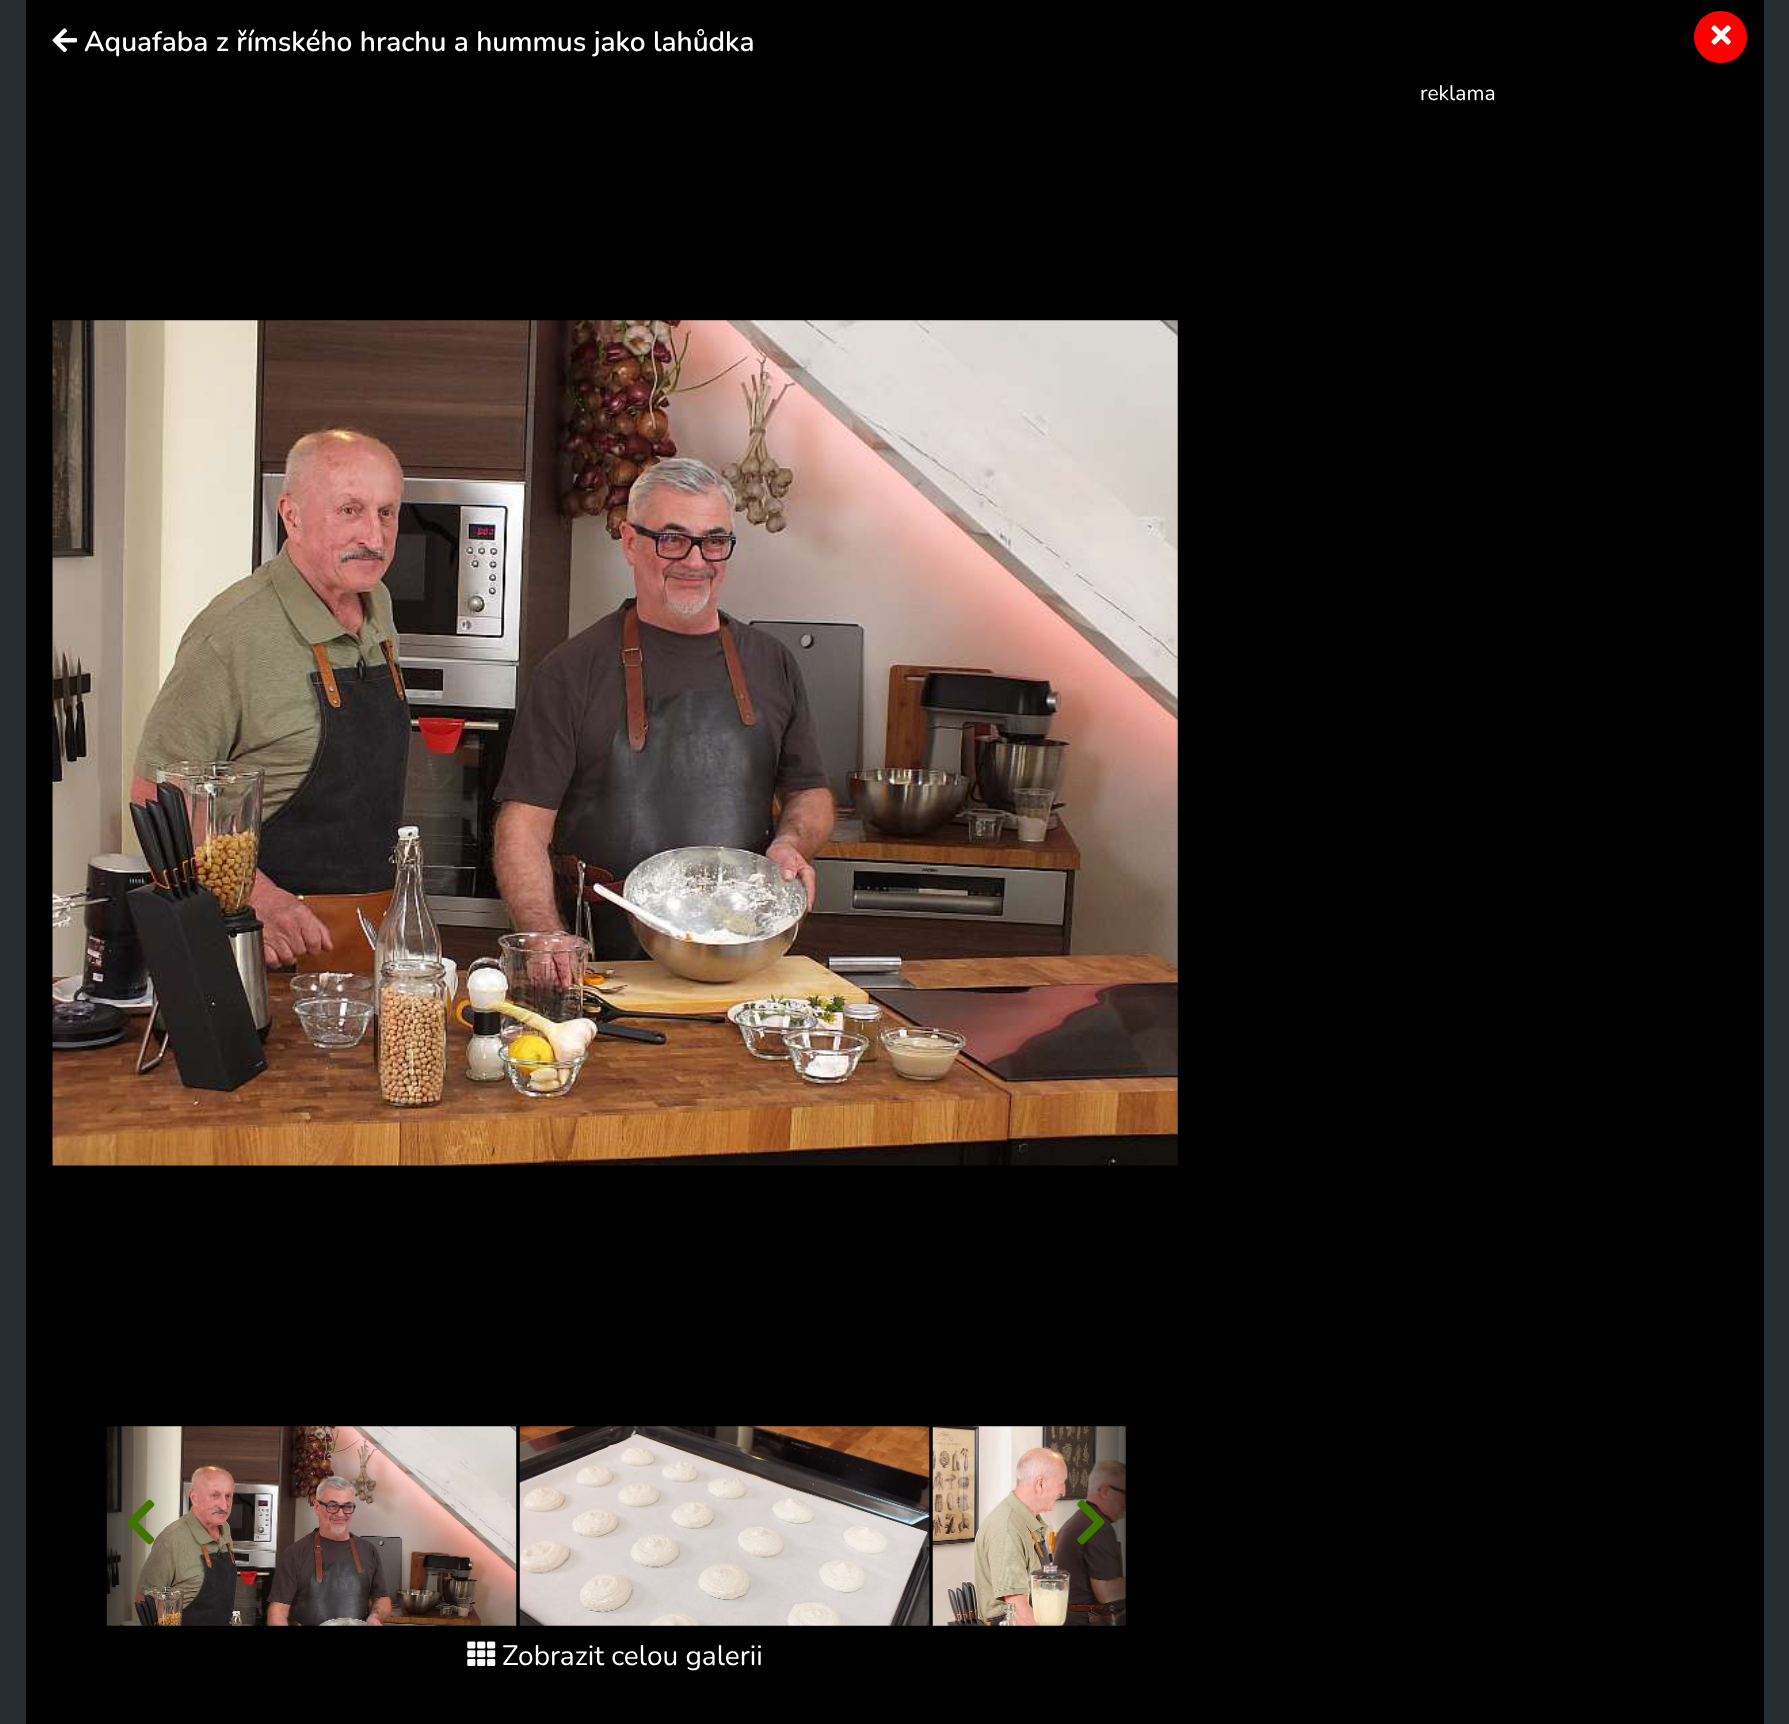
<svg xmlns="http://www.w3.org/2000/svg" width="1789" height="1724">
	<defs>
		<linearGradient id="g1" gradientUnits="userSpaceOnUse" x1="105" y1="1525" x2="175" y2="1525"><stop offset="0" stop-color="#000000" stop-opacity="0.65" /><stop offset="1" stop-color="#000000" stop-opacity="0" /></linearGradient>
		<linearGradient id="g2" gradientUnits="userSpaceOnUse" x1="1055" y1="1525" x2="1125" y2="1525"><stop offset="0" stop-color="#000000" stop-opacity="0" /><stop offset="1" stop-color="#000000" stop-opacity="0.65" /></linearGradient>
	</defs>
	<rect width="100%" height="100%" fill="#282D32" />
	<rect x="26" y="0" width="1738" height="1724" fill="#000000" />
	<image x="52" y="28" width="26" height="25" href="assets/img1.png" />
	<text x="84" y="51" font-family="Nunito" font-size="28" font-weight="600" fill="#FFFFFF">Aquafaba z římského hrachu a hummus jako lahůdka</text>
	<rect x="1694" y="11" width="53" height="52" rx="26" fill="#FF0000" />
	<image x="1711" y="25" width="20" height="20" href="assets/img2.png" />
	<text x="1420" y="100" font-family="Nunito" font-size="21" fill="#FFFFFF">reklama</text>
	<image x="52" y="320" width="1126" height="846" href="assets/img3.png" />
	<image x="106" y="1426" width="411" height="200" href="assets/img4.png" />
	<image x="519" y="1426" width="411" height="200" href="assets/img5.png" />
	<image x="932" y="1426" width="194" height="200" href="assets/img6.png" />
	<rect x="106" y="1426" width="67" height="200" fill="url(#g1)" />
	<image x="127" y="1499" width="28" height="46" href="assets/img7.png" />
	<rect x="1057" y="1426" width="68" height="200" fill="url(#g2)" />
	<image x="1077" y="1499" width="28" height="46" href="assets/img8.png" />
	<image x="467" y="1641" width="29" height="25" href="assets/img9.png" />
	<text x="502" y="1665" font-family="Nunito" font-size="28" fill="#FFFFFF">Zobrazit celou galerii</text>
</svg>
